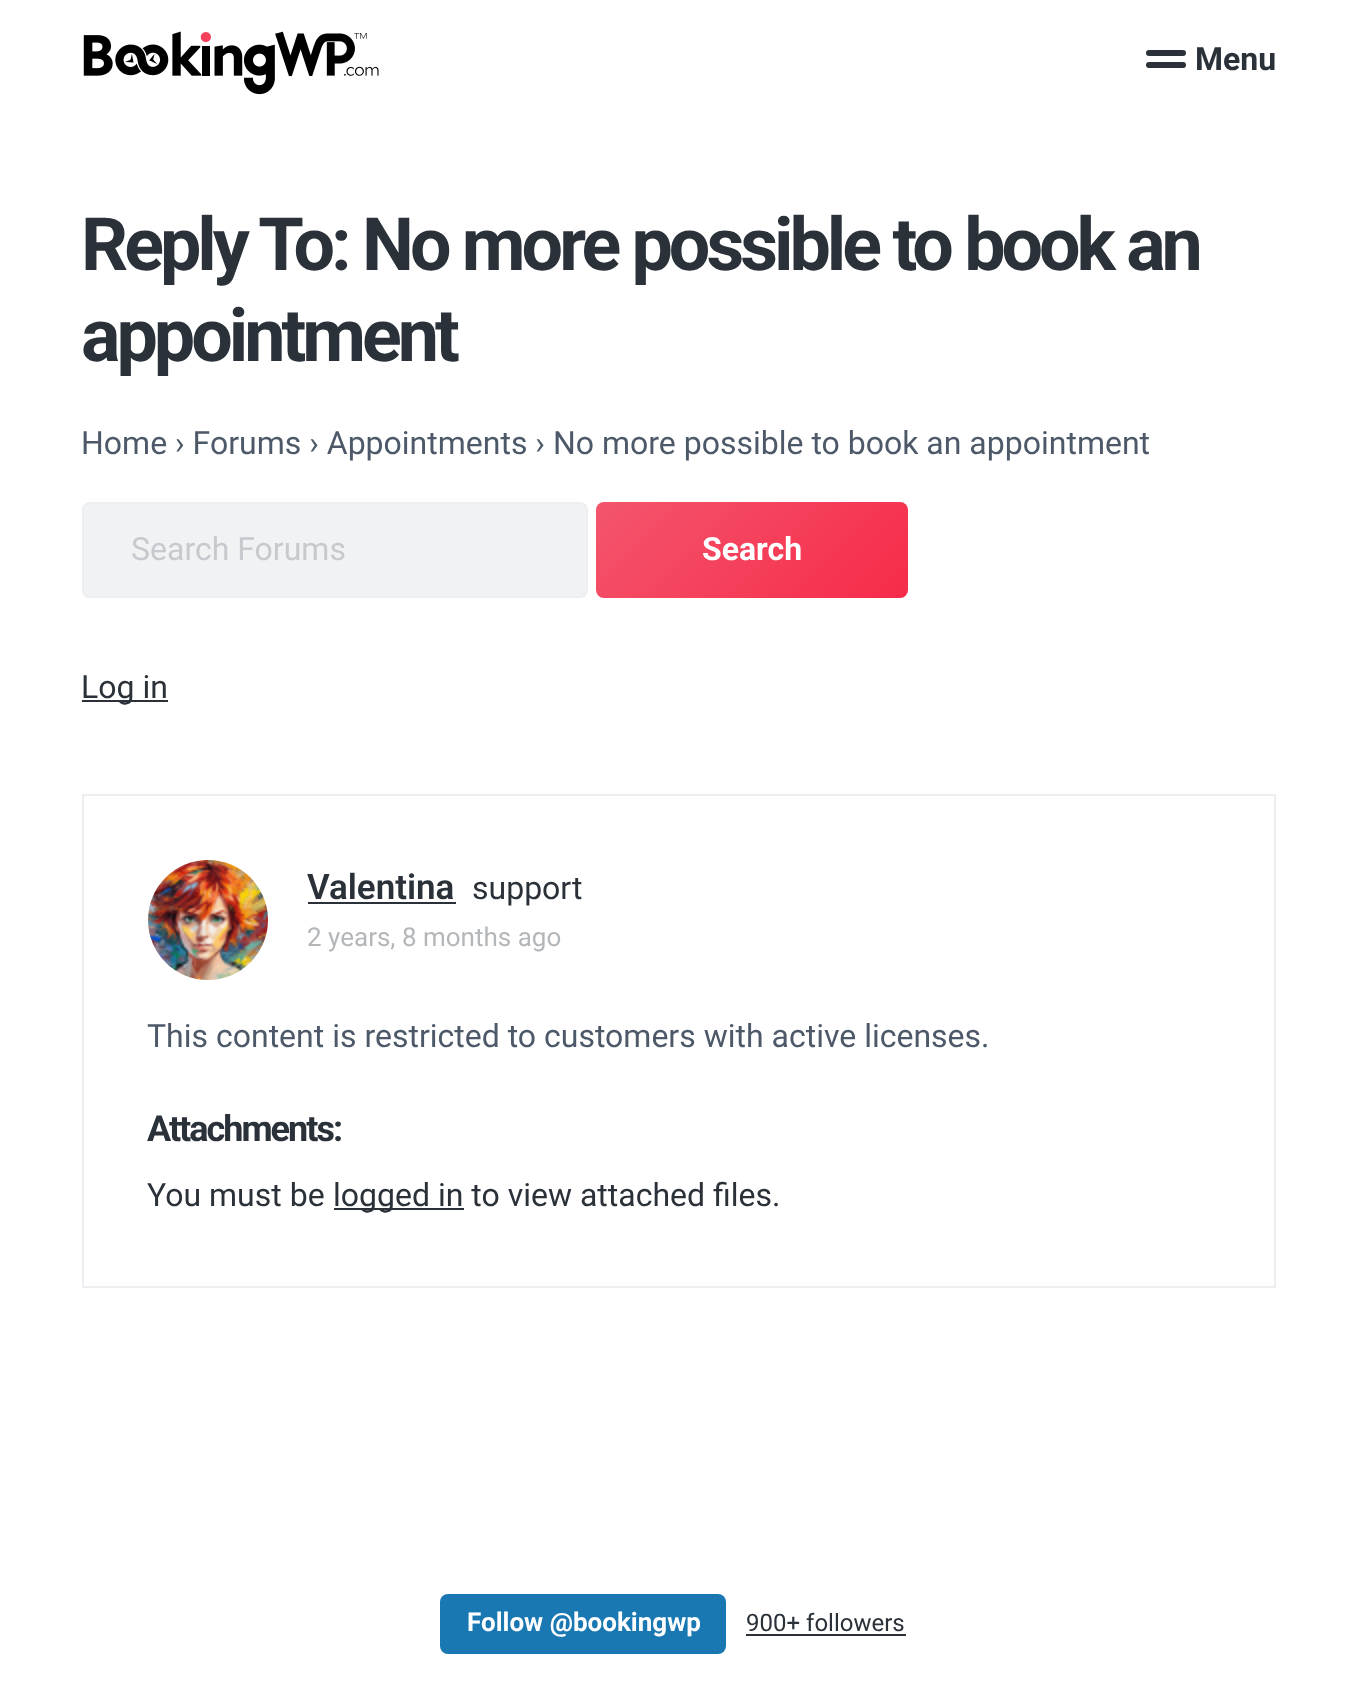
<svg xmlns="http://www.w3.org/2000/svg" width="1358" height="1704">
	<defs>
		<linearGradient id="g1" gradientUnits="userSpaceOnUse" x1="650" y1="448" x2="854" y2="652"><stop offset="0" stop-color="#F4556D" /><stop offset="1" stop-color="#F62B49" /></linearGradient>
	</defs>
	<rect width="100%" height="100%" fill="#FFFFFF" />
	<image x="83" y="31" width="296" height="64" href="assets/img1.png" />
	<rect x="1146" y="50" width="40" height="6" rx="3" fill="#2A3139" />
	<rect x="1146" y="62" width="40" height="6" rx="3" fill="#2A3139" />
	<text x="1195" y="70" font-family="Roboto" font-size="32" font-weight="700" fill="#2A3139">Menu</text>
	<g font-family="Roboto" font-size="73.6" font-weight="700" letter-spacing="-4" fill="#2A3139">
		<text x="81" y="270">Reply To: No more possible to book an</text>
		<text x="81" y="361">appointment</text>
	</g>
	<text x="81" y="454" font-family="Roboto" font-size="32" fill="#4D5968">Home › Forums › Appointments › No more possible to book an appointment</text>
	<rect x="83" y="503" width="504" height="94" rx="7" fill="#F1F2F3" stroke="#ECEEF1" stroke-width="2" />
	<text x="131" y="560" font-family="Roboto" font-size="32" fill="#C6CACE">Search Forums</text>
	<rect x="596" y="502" width="312" height="96" rx="8" fill="url(#g1)" />
	<text x="702" y="560" font-family="Roboto" font-size="32" font-weight="700" fill="#FFFFFF">Search</text>
	<rect x="82" y="700" width="86" height="2" fill="#2A3139" />
	<text x="81" y="698" font-family="Roboto" font-size="32" fill="#2A3139">Log in</text>
	<rect x="83" y="795" width="1192" height="492" fill="none" stroke="#ECEEF1" stroke-width="2" />
	<image x="148" y="860" width="120" height="120" href="assets/img2.png" />
	<text x="307" y="899" font-family="Roboto" font-size="35" font-weight="600" fill="#2A3139">Valentina</text>
	<rect x="308" y="902" width="148" height="2" fill="#2A3139" />
	<text x="472" y="899" font-family="Roboto" font-size="32" fill="#2A3139">support</text>
	<text x="307" y="946" font-family="Roboto" font-size="26" fill="#B4B7BA">2 years, 8 months ago</text>
	<text x="147" y="1047" font-family="Roboto" font-size="32" fill="#4D5968">This content is restricted to customers with active licenses.</text>
	<text x="147" y="1141" font-family="Roboto" font-size="36" font-weight="700" letter-spacing="-2" fill="#2A3139">Attachments:</text>
	<text x="147" y="1206" font-family="Roboto" font-size="32" fill="#2A3139">You must be</text>
	<rect x="334" y="1208" width="130" height="2" fill="#2A3139" />
	<text x="333" y="1206" font-family="Roboto" font-size="32" fill="#2A3139">logged in to view attached files.</text>
	<rect x="440" y="1594" width="286" height="60" rx="8" fill="#1978B2" />
	<text x="467" y="1631" font-family="Roboto" font-size="26" font-weight="700" fill="#FFFFFF">Follow @bookingwp</text>
	<text x="746" y="1631" font-family="Roboto" font-size="24" fill="#2A3139">900+ followers</text>
	<rect x="746" y="1634" width="160" height="2" fill="#2A3139" />
</svg>
